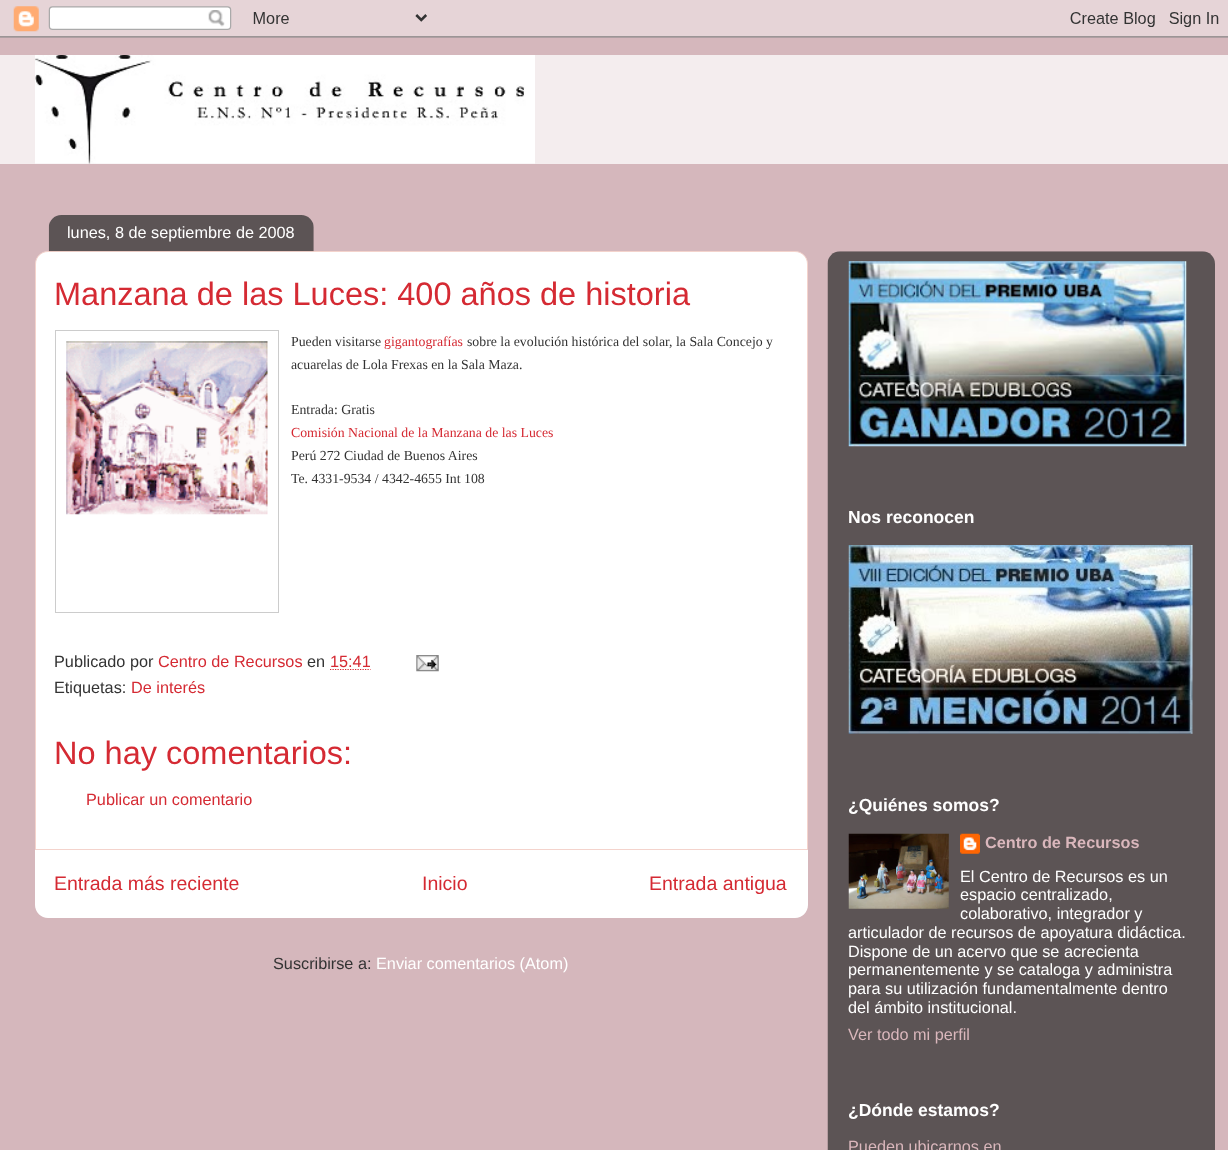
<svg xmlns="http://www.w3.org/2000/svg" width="1228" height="1150">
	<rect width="100%" height="100%" fill="#D5B7BC" />
	<image x="0" y="0" width="1228" height="38" href="assets/img1.png" />
	<rect x="0" y="55" width="1228" height="109" fill="#F4EDEE" />
	<image x="35" y="55" width="500" height="109" href="assets/img2.png" />
	<path d="M48 251.5H795C802 251.5 807.5 257 807.5 264V849.5H35.5V264C35.5 257 41 251.5 48 251.5Z" fill="#FFFFFF" stroke="#F4D3CC" />
	<image x="48" y="215" width="266" height="37" href="assets/img3.png" />
	<text x="67" y="238" font-family="Liberation Sans" font-size="16.25" fill="#FFFFFF">lunes, 8 de septiembre de 2008</text>
	<text x="54" y="305" font-family="Liberation Sans" font-size="32.5" fill="#D52A33">Manzana de las Luces: 400 años de historia</text>
	<rect x="55.5" y="330.5" width="223" height="282" fill="none" stroke="#CCCCCC" />
	<image x="66" y="341" width="202" height="174" href="assets/img4.png" />
	<text x="291" y="346" font-family="Liberation Serif" font-size="13.8" fill="#333333">Pueden visitarse</text>
	<text x="384" y="346" font-family="Liberation Serif" font-size="13.8" fill="#D52A33">gigantografías</text>
	<g font-family="Liberation Serif" font-size="13.8" fill="#333333">
		<text x="467" y="346">sobre la evolución histórica del solar, la Sala Concejo y</text>
		<text x="291" y="369">acuarelas de Lola Frexas en la Sala Maza.</text>
		<text x="291" y="414">Entrada: Gratis</text>
	</g>
	<text x="291" y="437" font-family="Liberation Serif" font-size="13.8" fill="#D52A33">Comisión Nacional de la Manzana de las Luces</text>
	<g font-family="Liberation Serif" font-size="13.8" fill="#333333">
		<text x="291" y="460">Perú 272 Ciudad de Buenos Aires</text>
		<text x="291" y="483">Te. 4331-9534 / 4342-4655 Int 108</text>
	</g>
	<text x="54" y="667" font-family="Liberation Sans" font-size="16.25" fill="#333333">Publicado por</text>
	<text x="158" y="667" font-family="Liberation Sans" font-size="16.25" fill="#D52A33">Centro de Recursos</text>
	<text x="307" y="667" font-family="Liberation Sans" font-size="16.25" fill="#333333">en</text>
	<text x="330" y="667" font-family="Liberation Sans" font-size="16.25" fill="#D52A33">15:41</text>
	<path d="M330 669.5H370.5" fill="none" stroke="#D52A33" stroke-width="1.2" stroke-dasharray="1.25 1.25" />
	<image x="416" y="655" width="23" height="17" href="assets/img5.png" />
	<text x="54" y="693" font-family="Liberation Sans" font-size="16.25" fill="#333333">Etiquetas:</text>
	<text x="131" y="693" font-family="Liberation Sans" font-size="16.25" fill="#D52A33">De interés</text>
	<text x="54" y="764" font-family="Liberation Sans" font-size="32.5" fill="#D52A33">No hay comentarios:</text>
	<text x="86" y="805" font-family="Liberation Sans" font-size="16.25" fill="#D52A33">Publicar un comentario</text>
	<path d="M35 850H808V905C808 912 802 918 795 918H48C41 918 35 912 35 905Z" fill="#FFFFFF" />
	<g font-family="Liberation Sans" font-size="19.5" fill="#D52A33">
		<text x="54" y="890">Entrada más reciente</text>
		<text x="422" y="890">Inicio</text>
		<text x="649" y="890">Entrada antigua</text>
	</g>
	<text x="273" y="969" font-family="Liberation Sans" font-size="16.25" fill="#333333">Suscribirse a:</text>
	<text x="376" y="969" font-family="Liberation Sans" font-size="16.25" fill="#FFFFFF">Enviar comentarios (Atom)</text>
	<image x="827" y="251" width="388" height="899" href="assets/img6.png" />
	<image x="848" y="261" width="339" height="186" href="assets/img7.png" />
	<text x="848" y="523" font-family="Liberation Sans" font-size="17.5" font-weight="700" fill="#FFFFFF">Nos reconocen</text>
	<image x="848" y="545" width="345" height="189" href="assets/img8.png" />
	<text x="848" y="811" font-family="Liberation Sans" font-size="17.5" font-weight="700" fill="#FFFFFF">¿Quiénes somos?</text>
	<image x="848" y="833" width="101" height="76" href="assets/img9.png" />
	<image x="960" y="833" width="20" height="21" href="assets/img10.png" />
	<text x="985" y="848" font-family="Liberation Sans" font-size="16.25" font-weight="700" fill="#DAB7BC">Centro de Recursos</text>
	<g font-family="Liberation Sans" font-size="16.25" fill="#FFFFFF">
		<text x="960" y="882">El Centro de Recursos es un</text>
		<text x="960" y="900">espacio centralizado,</text>
		<text x="960" y="919">colaborativo, integrador y</text>
		<text x="848" y="938">articulador de recursos de apoyatura didáctica.</text>
		<text x="848" y="957">Dispone de un acervo que se acrecienta</text>
		<text x="848" y="975">permanentemente y se cataloga y administra</text>
		<text x="848" y="994">para su utilización fundamentalmente dentro</text>
		<text x="848" y="1013">del ámbito institucional.</text>
	</g>
	<text x="848" y="1040" font-family="Liberation Sans" font-size="16.25" fill="#DAB7BC">Ver todo mi perfil</text>
	<text x="848" y="1116" font-family="Liberation Sans" font-size="17.5" font-weight="700" fill="#FFFFFF">¿Dónde estamos?</text>
	<text x="848" y="1152" font-family="Liberation Sans" font-size="16.25" fill="#DAB7BC">Pueden ubicarnos en</text>
</svg>
